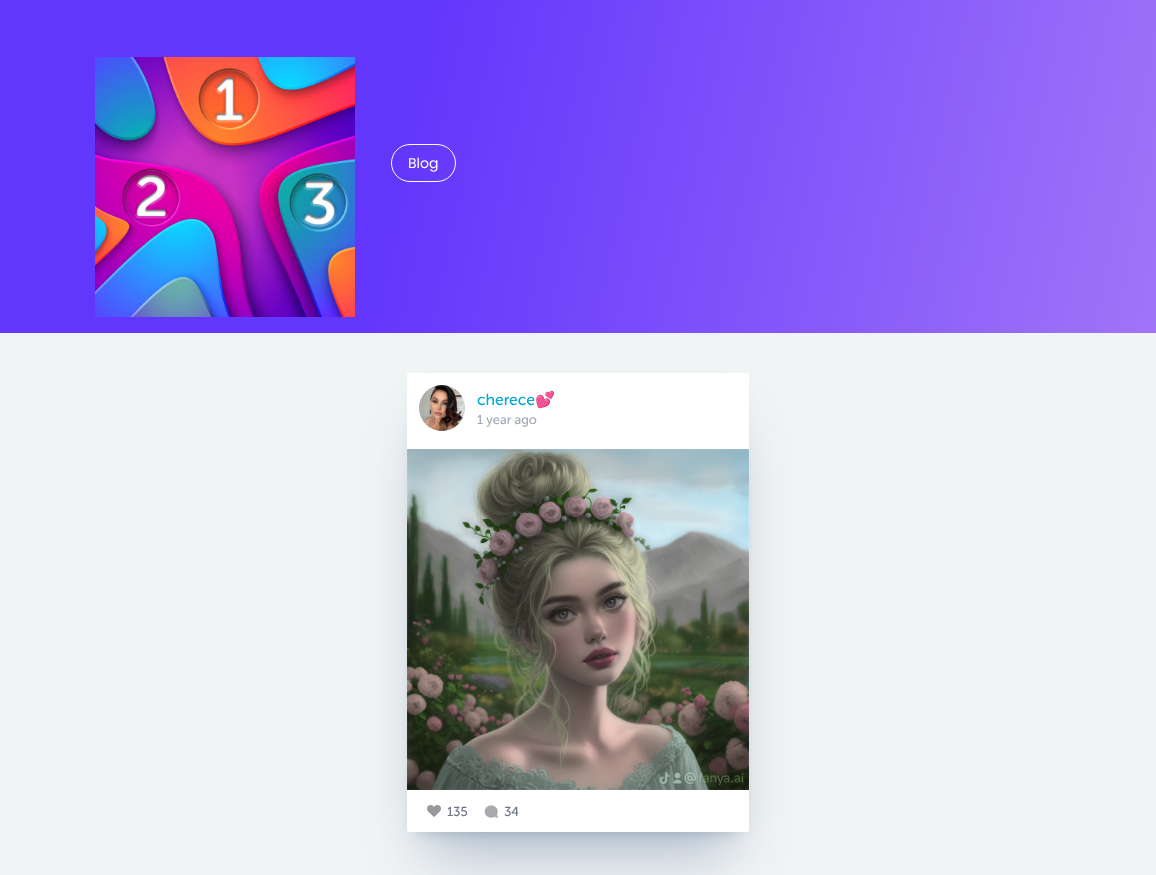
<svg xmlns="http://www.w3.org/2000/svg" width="1156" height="875">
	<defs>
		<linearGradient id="g1" gradientUnits="userSpaceOnUse" x1="-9" y1="42" x2="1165" y2="291"><stop offset="0.35" stop-color="#6336FC" /><stop offset="1" stop-color="#A075F8" /></linearGradient>
	</defs>
	<rect width="100%" height="100%" fill="#F1F4F5" />
	<rect x="0" y="0" width="1156" height="333" fill="url(#g1)" />
	<image x="95" y="57" width="260" height="260" href="assets/img1.png" />
	<rect x="391.5" y="144.5" width="64" height="37" rx="18.5" fill="none" stroke="#FFFFFF" />
	<text x="408" y="168" font-family="Poppins" font-size="14" fill="#FFFFFF">Blog</text>
	<rect x="417" y="393" width="322" height="439" fill="#0E3365" fill-opacity="0.2" filter="blur(7.5px)" />
	<rect x="427" y="433" width="302" height="419" fill="#0E3365" fill-opacity="0.3" filter="blur(30px)" />
	<rect x="407" y="373" width="342" height="459" rx="2" fill="#FFFFFF" />
	<image x="419" y="385" width="46" height="46" href="assets/img2.png" />
	<text x="477" y="405" font-family="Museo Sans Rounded" font-size="16" fill="#0BA7D5">cherece</text>
	<text x="535" y="405" font-family="Noto Color Emoji" font-size="16" fill="#0BA7D5">💕</text>
	<text x="477" y="424" font-family="Museo Sans Rounded" font-size="13" fill="#A2A8B5">1 year ago</text>
	<image x="407" y="449" width="342" height="341" href="assets/img3.png" />
	<image x="427" y="805" width="14" height="12" href="assets/img4.png" />
	<text x="447" y="816" font-family="Museo Sans Rounded" font-size="13" fill="#6B7386">135</text>
	<image x="484" y="805" width="14" height="13" href="assets/img5.png" />
	<text x="504" y="816" font-family="Museo Sans Rounded" font-size="13" fill="#6B7386">34</text>
</svg>
